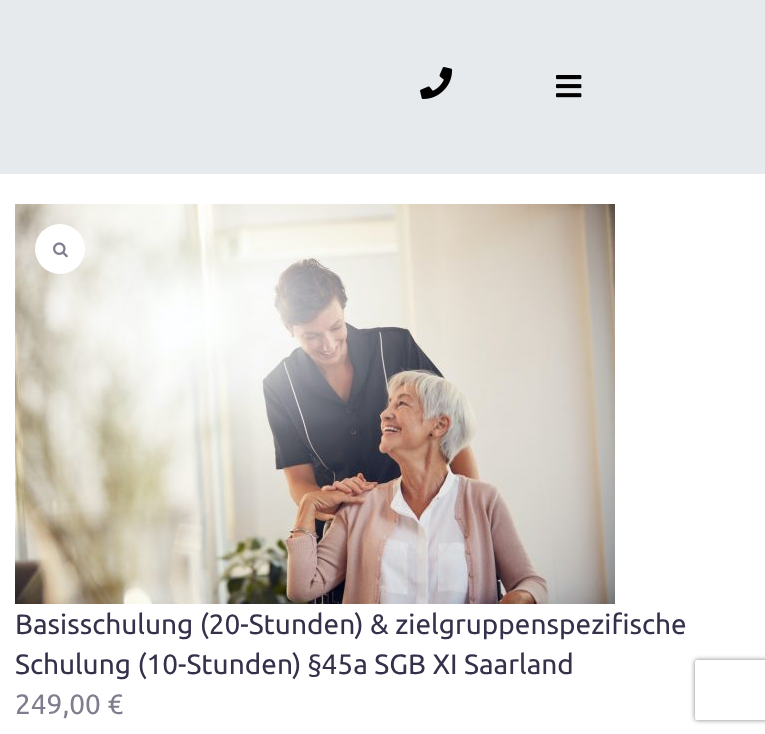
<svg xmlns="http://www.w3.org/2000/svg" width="765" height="734">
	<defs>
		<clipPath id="clip1"><path d="M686 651H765V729H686ZM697 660H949C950 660 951 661 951 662V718C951 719 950 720 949 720H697C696 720 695 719 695 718V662C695 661 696 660 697 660Z" clip-rule="evenodd" /></clipPath>
	</defs>
	<rect width="100%" height="100%" fill="#FFFFFF" />
	<rect x="0" y="0" width="765" height="174" fill="#E6EAEC" />
	<image x="420" y="67" width="33" height="32" href="assets/img1.png" />
	<image x="556" y="75" width="26" height="23" href="assets/img2.png" />
	<image x="15" y="204" width="600" height="400" href="assets/img3.png" />
	<circle cx="60" cy="249" r="25" fill="#FFFFFF" />
	<image x="53" y="242" width="15" height="16" href="assets/img4.png" />
	<g font-family="Ubuntu" font-size="28" fill="#34314B">
		<text x="15" y="634">Basisschulung (20-Stunden) &amp; zielgruppenspezifische</text>
		<text x="15" y="674">Schulung (10-Stunden) §45a SGB XI Saarland</text>
	</g>
	<text x="15" y="714" font-family="Ubuntu" font-size="28" fill="#7F7D8E">249,00 €</text>
	<g clip-path="url(#clip1)">
		<rect x="695" y="660" width="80" height="60" rx="2" fill="#808080" filter="blur(2.5px)" />
	</g>
</svg>
